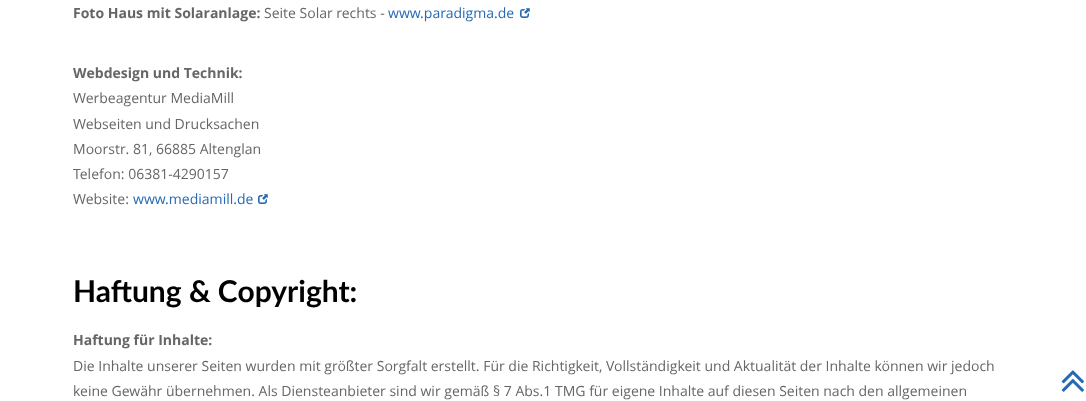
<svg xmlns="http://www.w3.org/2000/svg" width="1086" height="401">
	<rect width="100%" height="100%" fill="#FFFFFF" />
	<text x="73" y="18" font-family="Open Sans" font-size="14" font-weight="700" fill="#666666">Foto Haus mit Solaranlage:</text>
	<text x="264" y="18" font-family="Open Sans" font-size="14" fill="#666666">Seite Solar rechts -</text>
	<text x="388" y="18" font-family="Open Sans" font-size="14" fill="#2669B4">www.paradigma.de</text>
	<image x="520" y="8" width="10" height="10" href="assets/img1.png" />
	<text x="73" y="78" font-family="Open Sans" font-size="14" font-weight="700" fill="#666666">Webdesign und Technik:</text>
	<g font-family="Open Sans" font-size="14" fill="#666666">
		<text x="73" y="103">Werbeagentur MediaMill</text>
		<text x="73" y="129">Webseiten und Drucksachen</text>
		<text x="73" y="154">Moorstr. 81, 66885 Altenglan</text>
		<text x="73" y="179">Telefon: 06381-4290157</text>
		<text x="73" y="204">Website:</text>
	</g>
	<text x="133" y="204" font-family="Open Sans" font-size="14" fill="#2669B4">www.mediamill.de</text>
	<image x="258" y="194" width="10" height="10" href="assets/img1.png" />
	<text x="73" y="302" font-family="Lato" font-size="30" font-weight="700" fill="#000000">Haftung &amp; Copyright:</text>
	<text x="73" y="345" font-family="Open Sans" font-size="14" font-weight="700" fill="#666666">Haftung für Inhalte:</text>
	<g font-family="Open Sans" font-size="14" fill="#666666">
		<text x="73" y="371">Die Inhalte unserer Seiten wurden mit größter Sorgfalt erstellt. Für die Richtigkeit, Vollständigkeit und Aktualität der Inhalte können wir jedoch</text>
		<text x="73" y="396">keine Gewähr übernehmen. Als Diensteanbieter sind wir gemäß § 7 Abs.1 TMG für eigene Inhalte auf diesen Seiten nach den allgemeinen</text>
	</g>
	<image x="1061" y="370" width="23" height="22" href="assets/img2.png" />
</svg>
